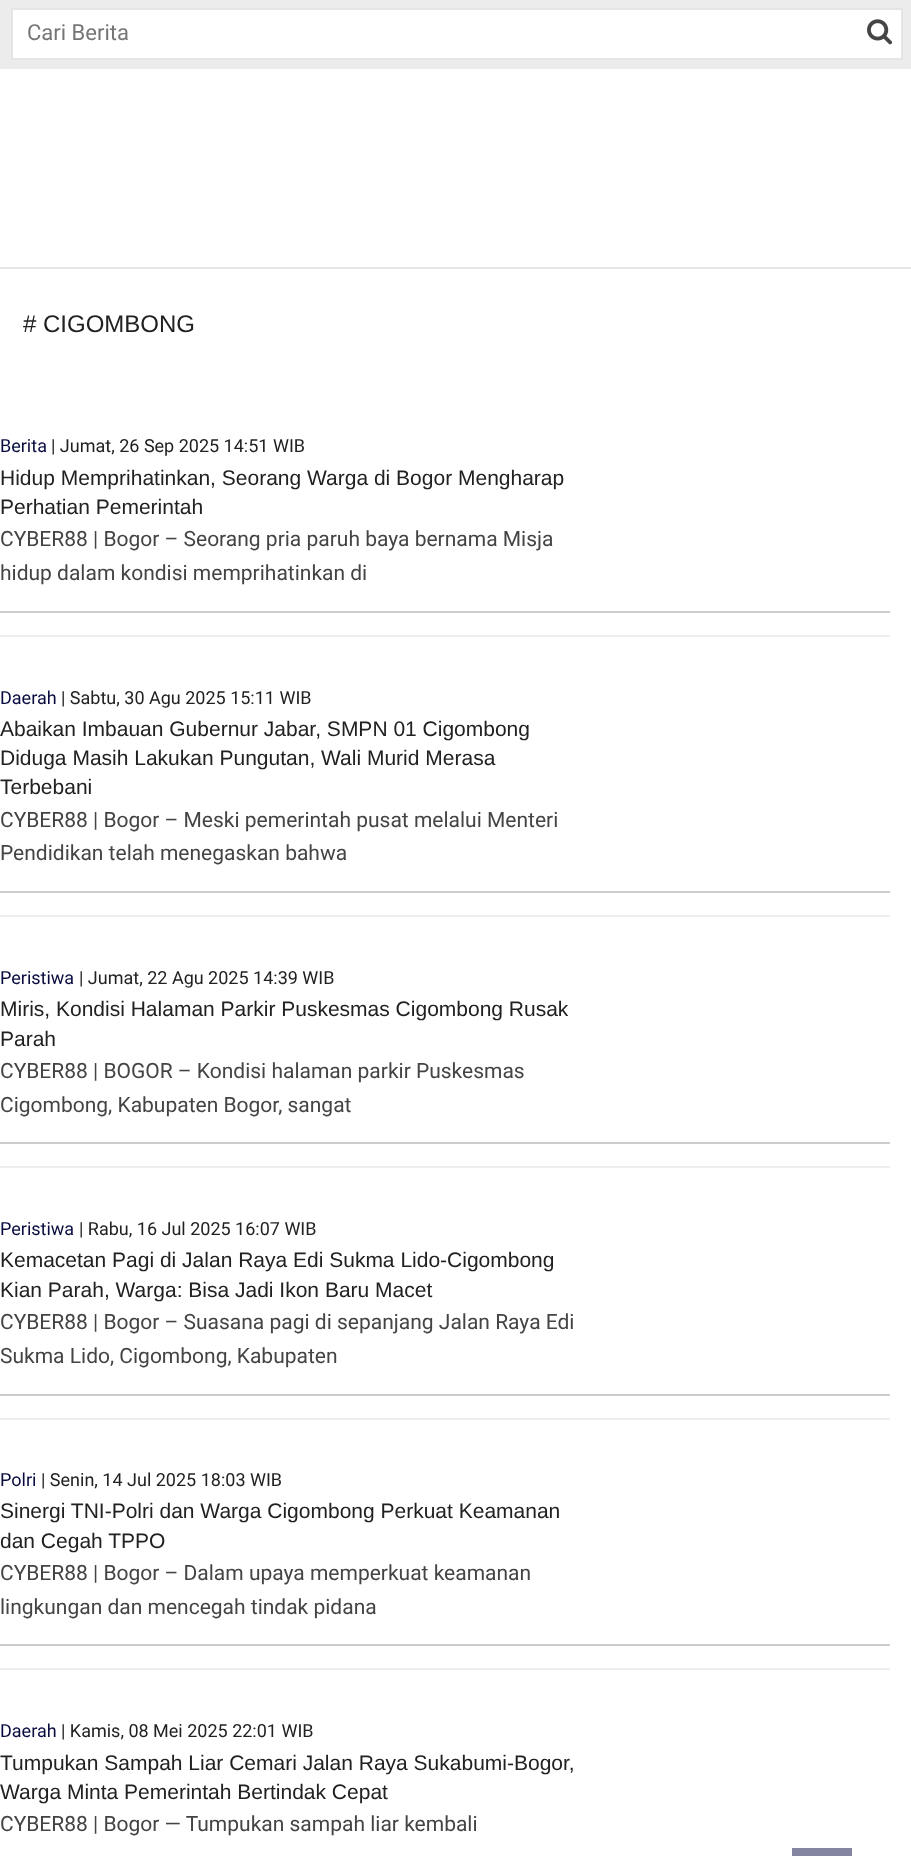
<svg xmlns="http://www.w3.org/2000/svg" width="911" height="1856">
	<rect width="100%" height="100%" fill="#FFFFFF" />
	<rect x="0" y="0" width="911" height="69" fill="#ECECEC" />
	<rect x="12" y="9" width="890" height="50" fill="#FFFFFF" stroke="#E5E5E5" stroke-width="2" />
	<text x="27" y="40" font-family="Roboto" font-size="22" fill="#757575">Cari Berita</text>
	<image x="867" y="19" width="26" height="26" href="assets/img1.png" />
	<rect x="0" y="267" width="911" height="2" fill="#E6E6E6" />
	<text x="23" y="332" font-family="Liberation Sans" font-size="24" fill="#212121"># CIGOMBONG</text>
	<rect x="0" y="611" width="890" height="2" fill="#CCCCCC" />
	<text x="0" y="452" font-family="Roboto" font-size="18" fill="#080B3E">Berita</text>
	<text x="51" y="452" font-family="Roboto" font-size="18" fill="#212121">| Jumat, 26 Sep 2025 14:51 WIB</text>
	<g font-family="Liberation Sans" font-size="21" fill="#212121">
		<text x="0" y="485">Hidup Memprihatinkan, Seorang Warga di Bogor Mengharap</text>
		<text x="0" y="514">Perhatian Pemerintah</text>
	</g>
	<g font-family="Roboto" font-size="21" fill="#444444">
		<text x="0" y="546">CYBER88 | Bogor – Seorang pria paruh baya bernama Misja</text>
		<text x="0" y="580">hidup dalam kondisi memprihatinkan di</text>
	</g>
	<rect x="0" y="635" width="890" height="2" fill="#EEEEEE" />
	<rect x="0" y="891" width="890" height="2" fill="#CCCCCC" />
	<text x="0" y="704" font-family="Roboto" font-size="18" fill="#080B3E">Daerah</text>
	<text x="61" y="704" font-family="Roboto" font-size="18" fill="#212121">| Sabtu, 30 Agu 2025 15:11 WIB</text>
	<g font-family="Liberation Sans" font-size="21" fill="#212121">
		<text x="0" y="736">Abaikan Imbauan Gubernur Jabar, SMPN 01 Cigombong</text>
		<text x="0" y="765">Diduga Masih Lakukan Pungutan, Wali Murid Merasa</text>
		<text x="0" y="794">Terbebani</text>
	</g>
	<g font-family="Roboto" font-size="21" fill="#444444">
		<text x="0" y="827">CYBER88 | Bogor – Meski pemerintah pusat melalui Menteri</text>
		<text x="0" y="860">Pendidikan telah menegaskan bahwa</text>
	</g>
	<rect x="0" y="915" width="890" height="2" fill="#EEEEEE" />
	<rect x="0" y="1142" width="890" height="2" fill="#CCCCCC" />
	<text x="0" y="984" font-family="Roboto" font-size="18" fill="#080B3E">Peristiwa</text>
	<text x="79" y="984" font-family="Roboto" font-size="18" fill="#212121">| Jumat, 22 Agu 2025 14:39 WIB</text>
	<g font-family="Liberation Sans" font-size="21" fill="#212121">
		<text x="0" y="1016">Miris, Kondisi Halaman Parkir Puskesmas Cigombong Rusak</text>
		<text x="0" y="1046">Parah</text>
	</g>
	<g font-family="Roboto" font-size="21" fill="#444444">
		<text x="0" y="1078">CYBER88 | BOGOR – Kondisi halaman parkir Puskesmas</text>
		<text x="0" y="1112">Cigombong, Kabupaten Bogor, sangat</text>
	</g>
	<rect x="0" y="1166" width="890" height="2" fill="#EEEEEE" />
	<rect x="0" y="1394" width="890" height="2" fill="#CCCCCC" />
	<text x="0" y="1235" font-family="Roboto" font-size="18" fill="#080B3E">Peristiwa</text>
	<text x="79" y="1235" font-family="Roboto" font-size="18" fill="#212121">| Rabu, 16 Jul 2025 16:07 WIB</text>
	<g font-family="Liberation Sans" font-size="21" fill="#212121">
		<text x="0" y="1267">Kemacetan Pagi di Jalan Raya Edi Sukma Lido-Cigombong</text>
		<text x="0" y="1297">Kian Parah, Warga: Bisa Jadi Ikon Baru Macet</text>
	</g>
	<g font-family="Roboto" font-size="21" fill="#444444">
		<text x="0" y="1329">CYBER88 | Bogor – Suasana pagi di sepanjang Jalan Raya Edi</text>
		<text x="0" y="1363">Sukma Lido, Cigombong, Kabupaten</text>
	</g>
	<rect x="0" y="1418" width="890" height="2" fill="#EEEEEE" />
	<rect x="0" y="1644" width="890" height="2" fill="#CCCCCC" />
	<text x="0" y="1486" font-family="Roboto" font-size="18" fill="#080B3E">Polri</text>
	<text x="41" y="1486" font-family="Roboto" font-size="18" fill="#212121">| Senin, 14 Jul 2025 18:03 WIB</text>
	<g font-family="Liberation Sans" font-size="21" fill="#212121">
		<text x="0" y="1518">Sinergi TNI-Polri dan Warga Cigombong Perkuat Keamanan</text>
		<text x="0" y="1548">dan Cegah TPPO</text>
	</g>
	<g font-family="Roboto" font-size="21" fill="#444444">
		<text x="0" y="1580">CYBER88 | Bogor – Dalam upaya memperkuat keamanan</text>
		<text x="0" y="1614">lingkungan dan mencegah tindak pidana</text>
	</g>
	<rect x="0" y="1668" width="890" height="2" fill="#EEEEEE" />
	<text x="0" y="1737" font-family="Roboto" font-size="18" fill="#080B3E">Daerah</text>
	<text x="61" y="1737" font-family="Roboto" font-size="18" fill="#212121">| Kamis, 08 Mei 2025 22:01 WIB</text>
	<g font-family="Liberation Sans" font-size="21" fill="#212121">
		<text x="0" y="1770">Tumpukan Sampah Liar Cemari Jalan Raya Sukabumi-Bogor,</text>
		<text x="0" y="1799">Warga Minta Pemerintah Bertindak Cepat</text>
	</g>
	<text x="0" y="1831" font-family="Roboto" font-size="21" fill="#444444">CYBER88 | Bogor — Tumpukan sampah liar kembali</text>
	<rect x="792" y="1848" width="60" height="8" fill="#84859F" />
</svg>
